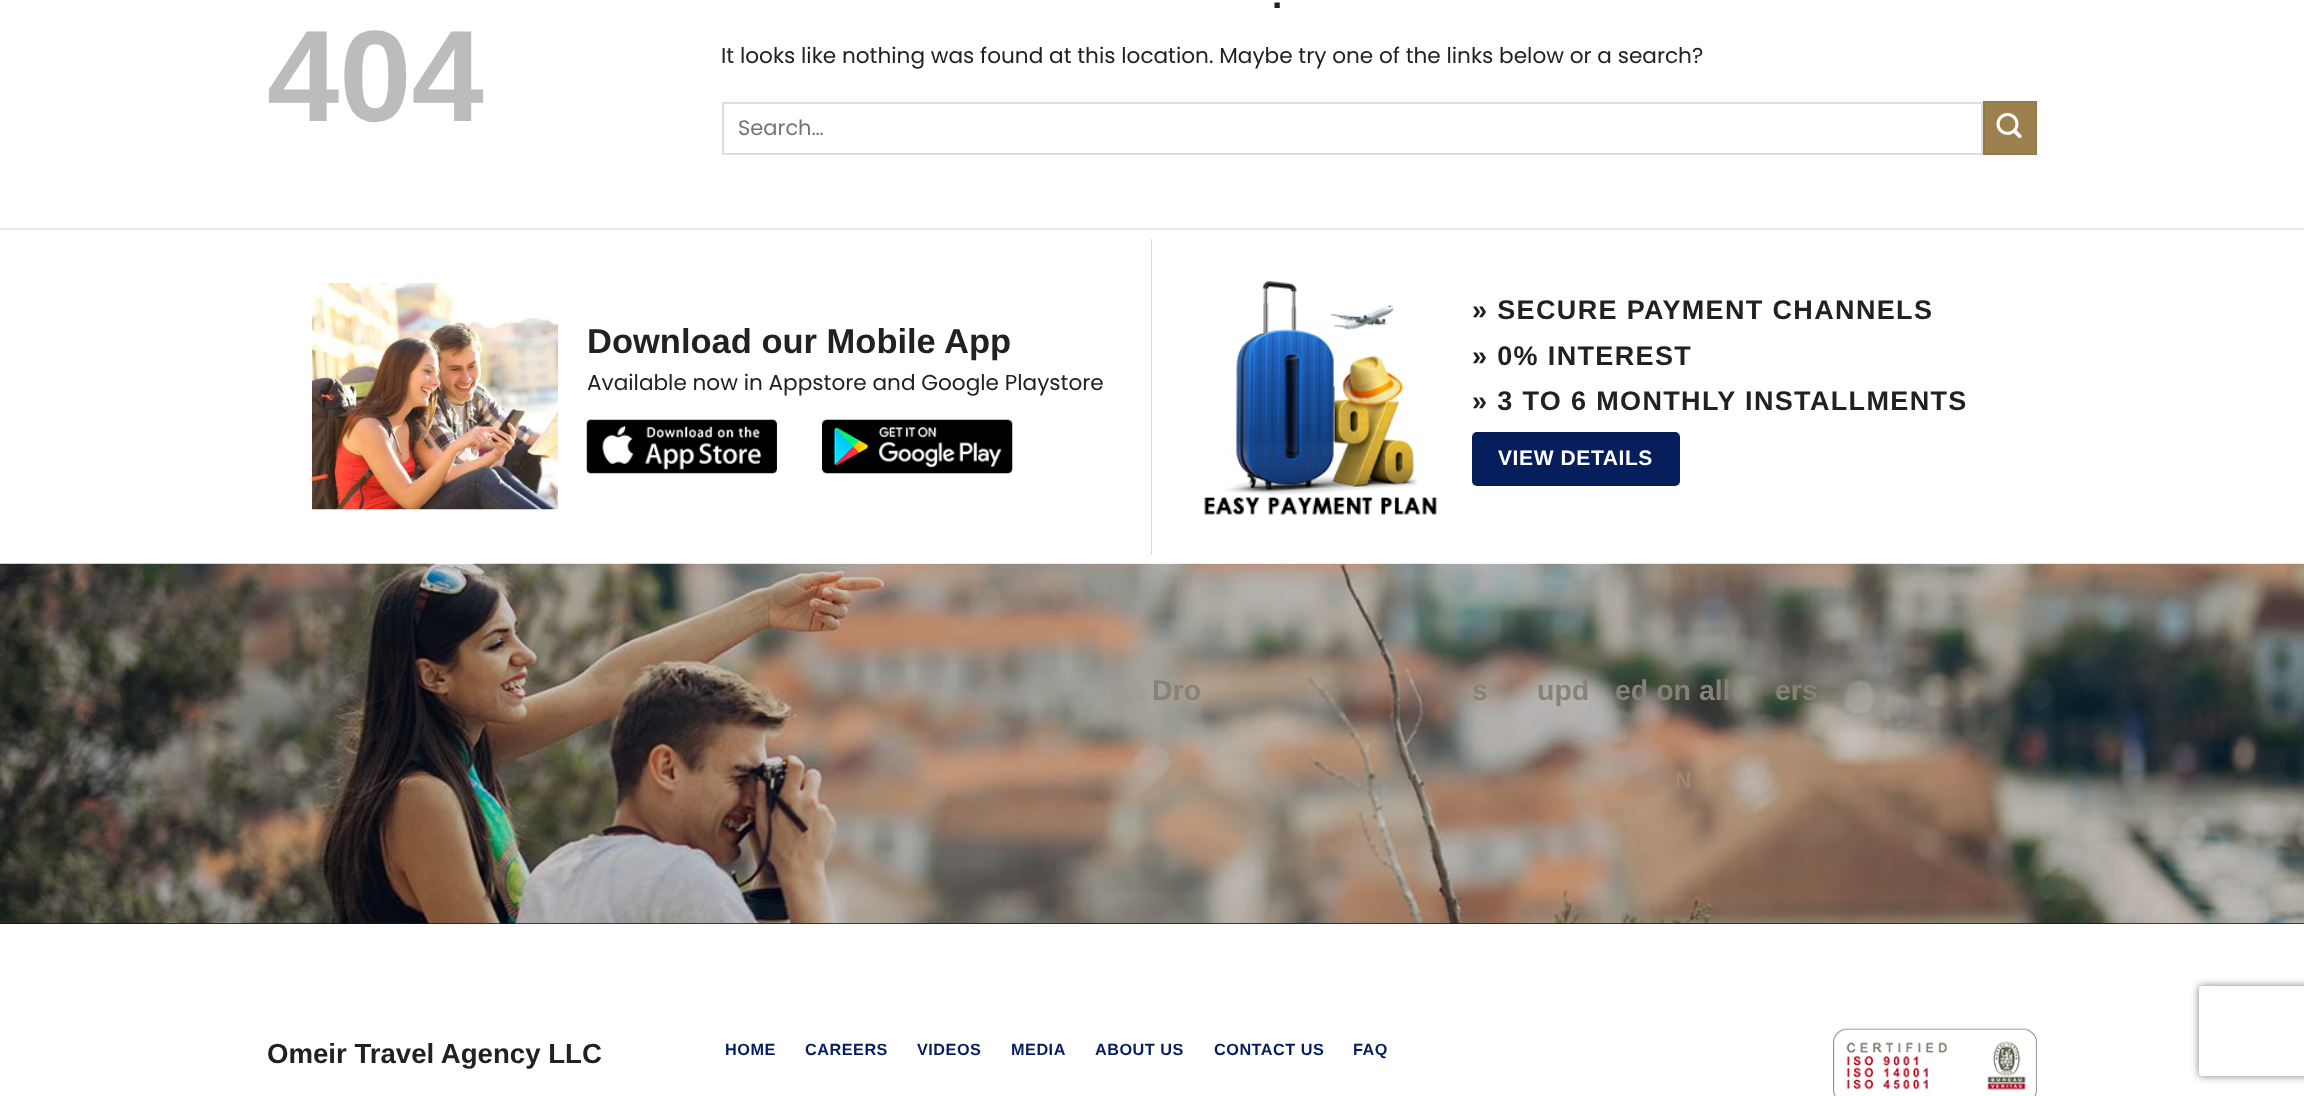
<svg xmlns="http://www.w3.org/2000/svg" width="2304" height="1096">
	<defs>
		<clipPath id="clip1"><path d="M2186 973H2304V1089H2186ZM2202 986H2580C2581.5 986 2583 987.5 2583 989V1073C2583 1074.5 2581.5 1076 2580 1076H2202C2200.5 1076 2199 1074.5 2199 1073V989C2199 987.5 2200.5 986 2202 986Z" clip-rule="evenodd" /></clipPath>
	</defs>
	<rect width="100%" height="100%" fill="#FFFFFF" />
	<text x="267" y="121" font-family="Liberation Sans" font-size="130" font-weight="700" fill="#BCBCBC">404</text>
	<text x="1272" y="8" font-family="Liberation Sans" font-size="37" font-weight="700" fill="#202121">.</text>
	<text x="721" y="63" font-family="Poppins" font-size="21.6" fill="#202121">It looks like nothing was found at this location. Maybe try one of the links below or a search?</text>
	<rect x="723" y="103" width="1259" height="51" fill="none" stroke="#DDDDDD" stroke-width="2" />
	<text x="738" y="135" font-family="Poppins" font-size="21" fill="#757575">Search…</text>
	<rect x="1984" y="102" width="52" height="52" fill="#9C814E" stroke="#947B4A" stroke-width="2" />
	<image x="1996" y="112" width="26" height="27" href="assets/img1.png" />
	<rect x="0" y="228" width="2304" height="2" fill="#E7E7E7" />
	<image x="312" y="283" width="246" height="227" href="assets/img2.png" />
	<text x="587" y="353" font-family="Liberation Sans" font-size="34.5" font-weight="700" fill="#202121">Download our Mobile App</text>
	<text x="587" y="390" font-family="Poppins" font-size="21.6" fill="#202121">Available now in Appstore and Google Playstore</text>
	<image x="586" y="419" width="191" height="55" href="assets/img3.png" />
	<image x="822" y="419" width="191" height="55" href="assets/img4.png" />
	<rect x="1151" y="239" width="1" height="316" fill="#DDDDDD" />
	<image x="1204" y="281" width="233" height="234" href="assets/img5.png" />
	<g font-family="Liberation Sans" font-size="27" font-weight="700" letter-spacing="1.35" fill="#202121">
		<text x="1472" y="319">» SECURE PAYMENT CHANNELS</text>
		<text x="1472" y="365">» 0% INTEREST</text>
		<text x="1472" y="410">» 3 TO 6 MONTHLY INSTALLMENTS</text>
	</g>
	<rect x="1472" y="432" width="208" height="54" rx="5" fill="#061F5C" />
	<rect x="1473" y="433" width="206" height="52" fill="none" stroke="#000000" stroke-opacity="0.05" stroke-width="2" />
	<text x="1498" y="465" font-family="Liberation Sans" font-size="21" font-weight="700" letter-spacing="0.6" fill="#FFFFFF">VIEW DETAILS</text>
	<rect x="0" y="923" width="2304" height="1" fill="#05194A" />
	<image x="0" y="563" width="2304" height="361" href="assets/img6.png" />
	<g font-family="Liberation Sans" font-size="28.5" font-weight="700" fill="#888176">
		<text x="1152" y="700">Dro</text>
		<text x="1472" y="700">s</text>
		<text x="1537" y="700">upd</text>
		<text x="1615" y="700">ed on all</text>
		<text x="1775" y="700">ers</text>
	</g>
	<text x="1675" y="788" font-family="Liberation Sans" font-size="23" font-weight="700" letter-spacing="1" fill="#A58872">N</text>
	<text x="267" y="1063" font-family="Liberation Sans" font-size="27.6" font-weight="700" fill="#202121">Omeir Travel Agency LLC</text>
	<g font-family="Liberation Sans" font-size="16.25" font-weight="700" letter-spacing="0.5" fill="#061F5C">
		<text x="725" y="1055">HOME</text>
		<text x="805" y="1055">CAREERS</text>
		<text x="917" y="1055">VIDEOS</text>
		<text x="1011" y="1055">MEDIA</text>
		<text x="1095" y="1055">ABOUT US</text>
		<text x="1214" y="1055">CONTACT US</text>
		<text x="1353" y="1055">FAQ</text>
	</g>
	<image x="1833" y="1028" width="204" height="68" href="assets/img7.png" />
	<g clip-path="url(#clip1)">
		<rect x="2199" y="986" width="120" height="90" rx="3" fill="#808080" filter="blur(4px)" />
	</g>
</svg>
